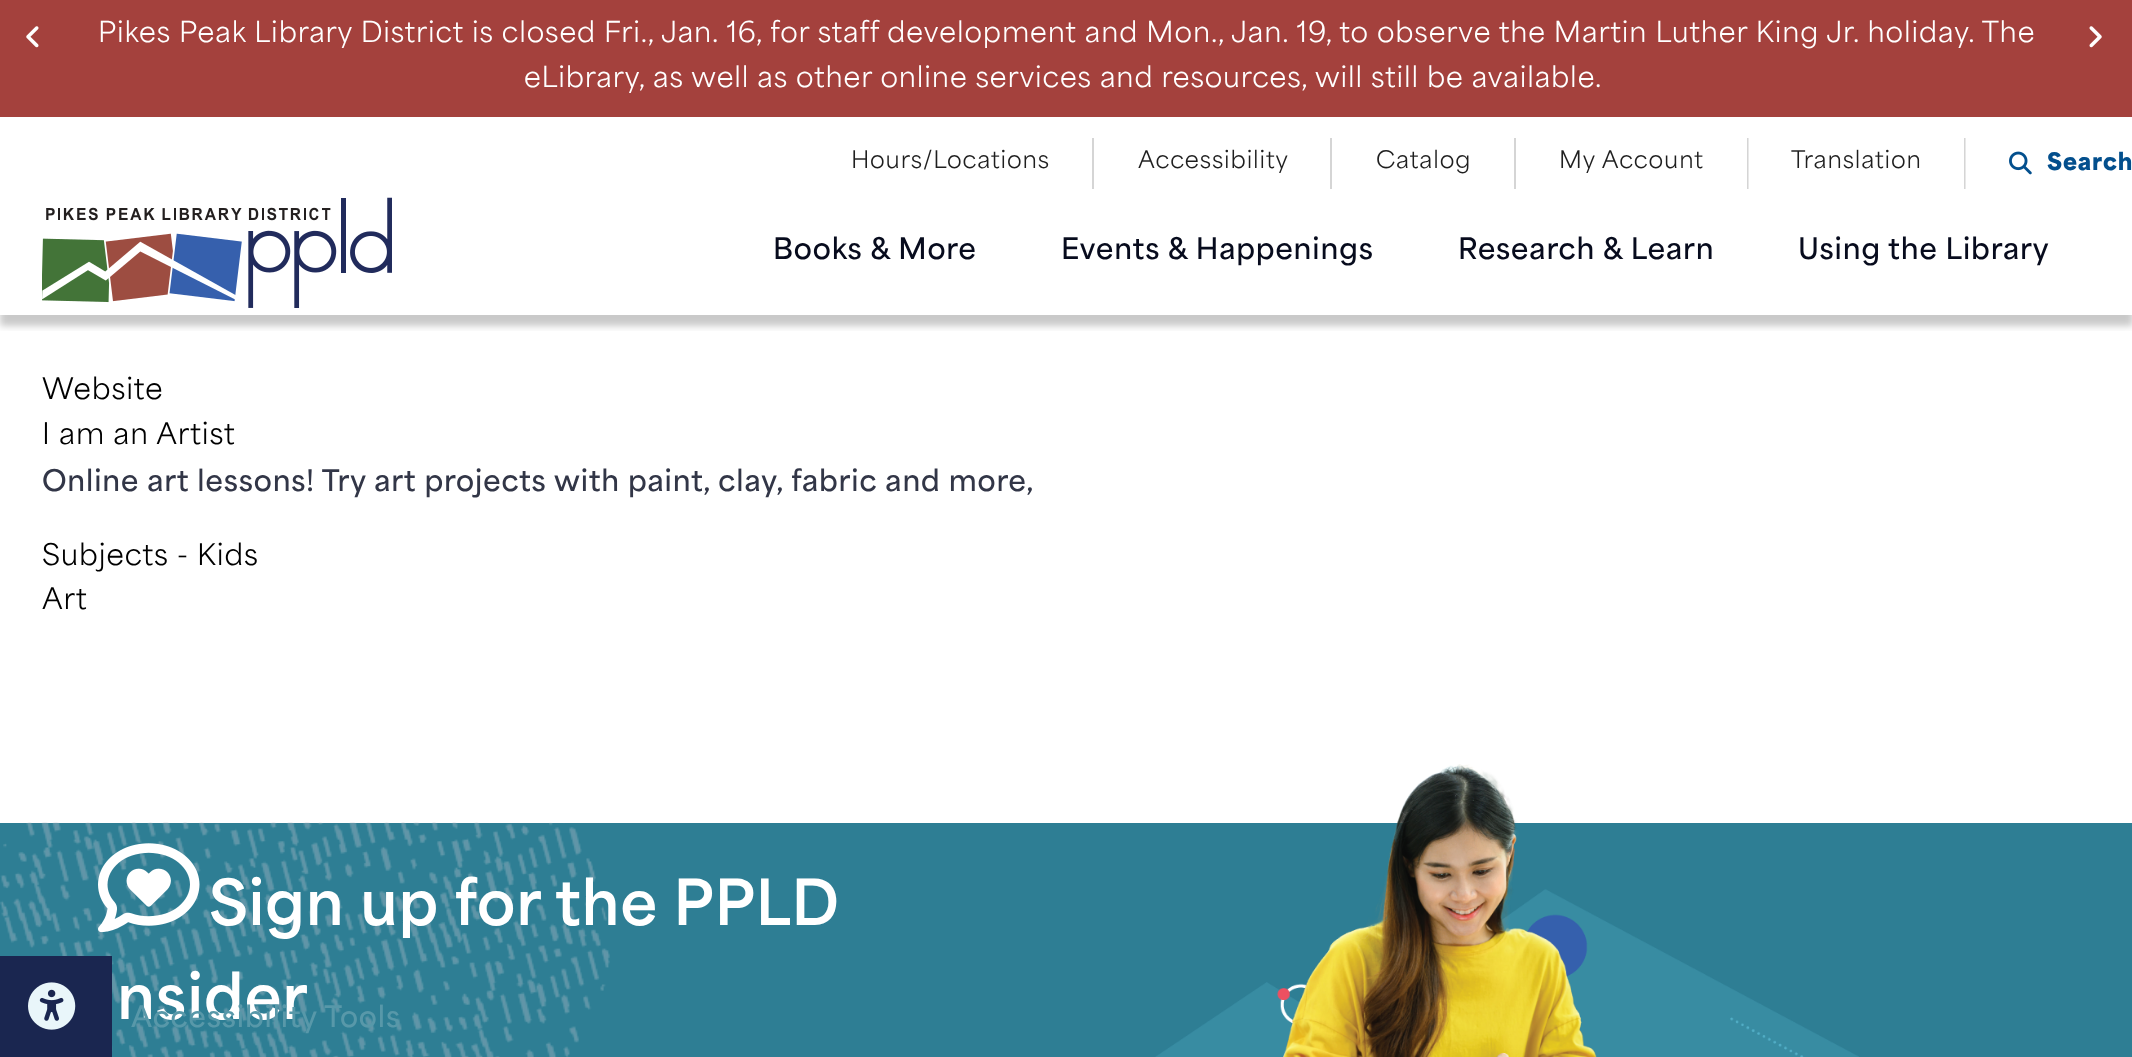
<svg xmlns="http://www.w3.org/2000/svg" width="2132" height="1057">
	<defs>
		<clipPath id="clip1"><rect x="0" y="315" width="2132" height="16" /></clipPath>
	</defs>
	<rect width="100%" height="100%" fill="#FFFFFF" />
	<rect x="0" y="0" width="2132" height="117" fill="#A4413D" />
	<image x="26" y="26" width="13" height="22" href="assets/img1.png" />
	<g font-family="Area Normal" font-size="27.12" letter-spacing="0.88" fill="#FFFFFF">
		<text x="98" y="42">Pikes Peak Library District is closed Fri., Jan. 16, for staff development and Mon., Jan. 19, to observe the Martin Luther King Jr. holiday. The</text>
		<text x="524" y="87">eLibrary, as well as other online services and resources, will still be available.</text>
	</g>
	<image x="2089" y="26" width="13" height="22" href="assets/img2.png" />
	<rect x="1092" y="138" width="2" height="51" fill="#D5D5D5" />
	<text x="851" y="168" font-family="Area Normal" font-size="22.75" letter-spacing="0.88" fill="#1F1F1F">Hours/Locations</text>
	<rect x="1330" y="138" width="2" height="51" fill="#D5D5D5" />
	<text x="1138" y="168" font-family="Area Normal" font-size="22.75" letter-spacing="0.88" fill="#1F1F1F">Accessibility</text>
	<rect x="1514" y="138" width="2" height="51" fill="#D5D5D5" />
	<text x="1376" y="168" font-family="Area Normal" font-size="22.75" letter-spacing="0.88" fill="#1F1F1F">Catalog</text>
	<rect x="1747" y="138" width="1" height="51" fill="#D5D5D5" />
	<rect x="1748" y="138" width="1" height="51" fill="#E8E8E8" />
	<text x="1559" y="168" font-family="Area Normal" font-size="22.75" letter-spacing="0.88" fill="#1F1F1F">My Account</text>
	<rect x="1964" y="138" width="1" height="51" fill="#D5D5D5" />
	<rect x="1965" y="138" width="1" height="51" fill="#E8E8E8" />
	<text x="1791" y="168" font-family="Area Normal" font-size="22.75" letter-spacing="0.88" fill="#1F1F1F">Translation</text>
	<image x="2009" y="151" width="23" height="24" href="assets/img3.png" />
	<text x="2047" y="170" font-family="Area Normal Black" font-size="22.75" font-weight="900" letter-spacing="0.88" fill="#034F8D">Search</text>
	<g clip-path="url(#clip1)">
		<rect x="0" y="201" width="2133" height="125" fill="#000000" fill-opacity="0.21" filter="blur(3.5px)" />
	</g>
	<image x="42" y="197" width="350" height="111" href="assets/img4.png" />
	<g font-family="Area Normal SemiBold" font-size="28" font-weight="600" letter-spacing="0.88" fill="#070B1D">
		<text x="773" y="259">Books &amp; More</text>
		<text x="1061" y="259">Events &amp; Happenings</text>
		<text x="1458" y="259">Research &amp; Learn</text>
		<text x="1798" y="259">Using the Library</text>
	</g>
	<g font-family="Area Normal" font-size="28" letter-spacing="0.88" fill="#000000">
		<text x="42" y="399">Website</text>
		<text x="42" y="444">I am an Artist</text>
	</g>
	<text x="42" y="491" font-family="Area Normal SemiBold" font-size="28" font-weight="600" letter-spacing="0.88" fill="#323647">Online art lessons! Try art projects with paint, clay, fabric and more,</text>
	<g font-family="Area Normal" font-size="28" letter-spacing="0.88" fill="#000000">
		<text x="42" y="565">Subjects - Kids</text>
		<text x="42" y="609">Art</text>
	</g>
	<rect x="0" y="823" width="2132" height="234" fill="#2E7E94" />
	<image x="0" y="822" width="610" height="235" href="assets/img5.png" />
	<image x="98" y="843" width="102" height="90" href="assets/img6.png" />
	<g font-family="Area Normal" font-size="59.5" font-weight="700" letter-spacing="0.88" fill="#FFFFFF">
		<text x="209" y="925">Sign up for the PPLD</text>
		<text x="117" y="1019">nsider</text>
	</g>
	<image x="1155" y="764" width="704" height="293" href="assets/img7.png" />
	<rect x="0" y="956" width="112" height="101" fill="#1A2650" />
	<image x="28" y="982" width="48" height="48" href="assets/img8.png" />
	<text x="131" y="1027" font-family="Area Normal SemiBold" font-size="28" font-weight="600" letter-spacing="0.88" fill="#5898A9">Accessibility Tools</text>
</svg>
